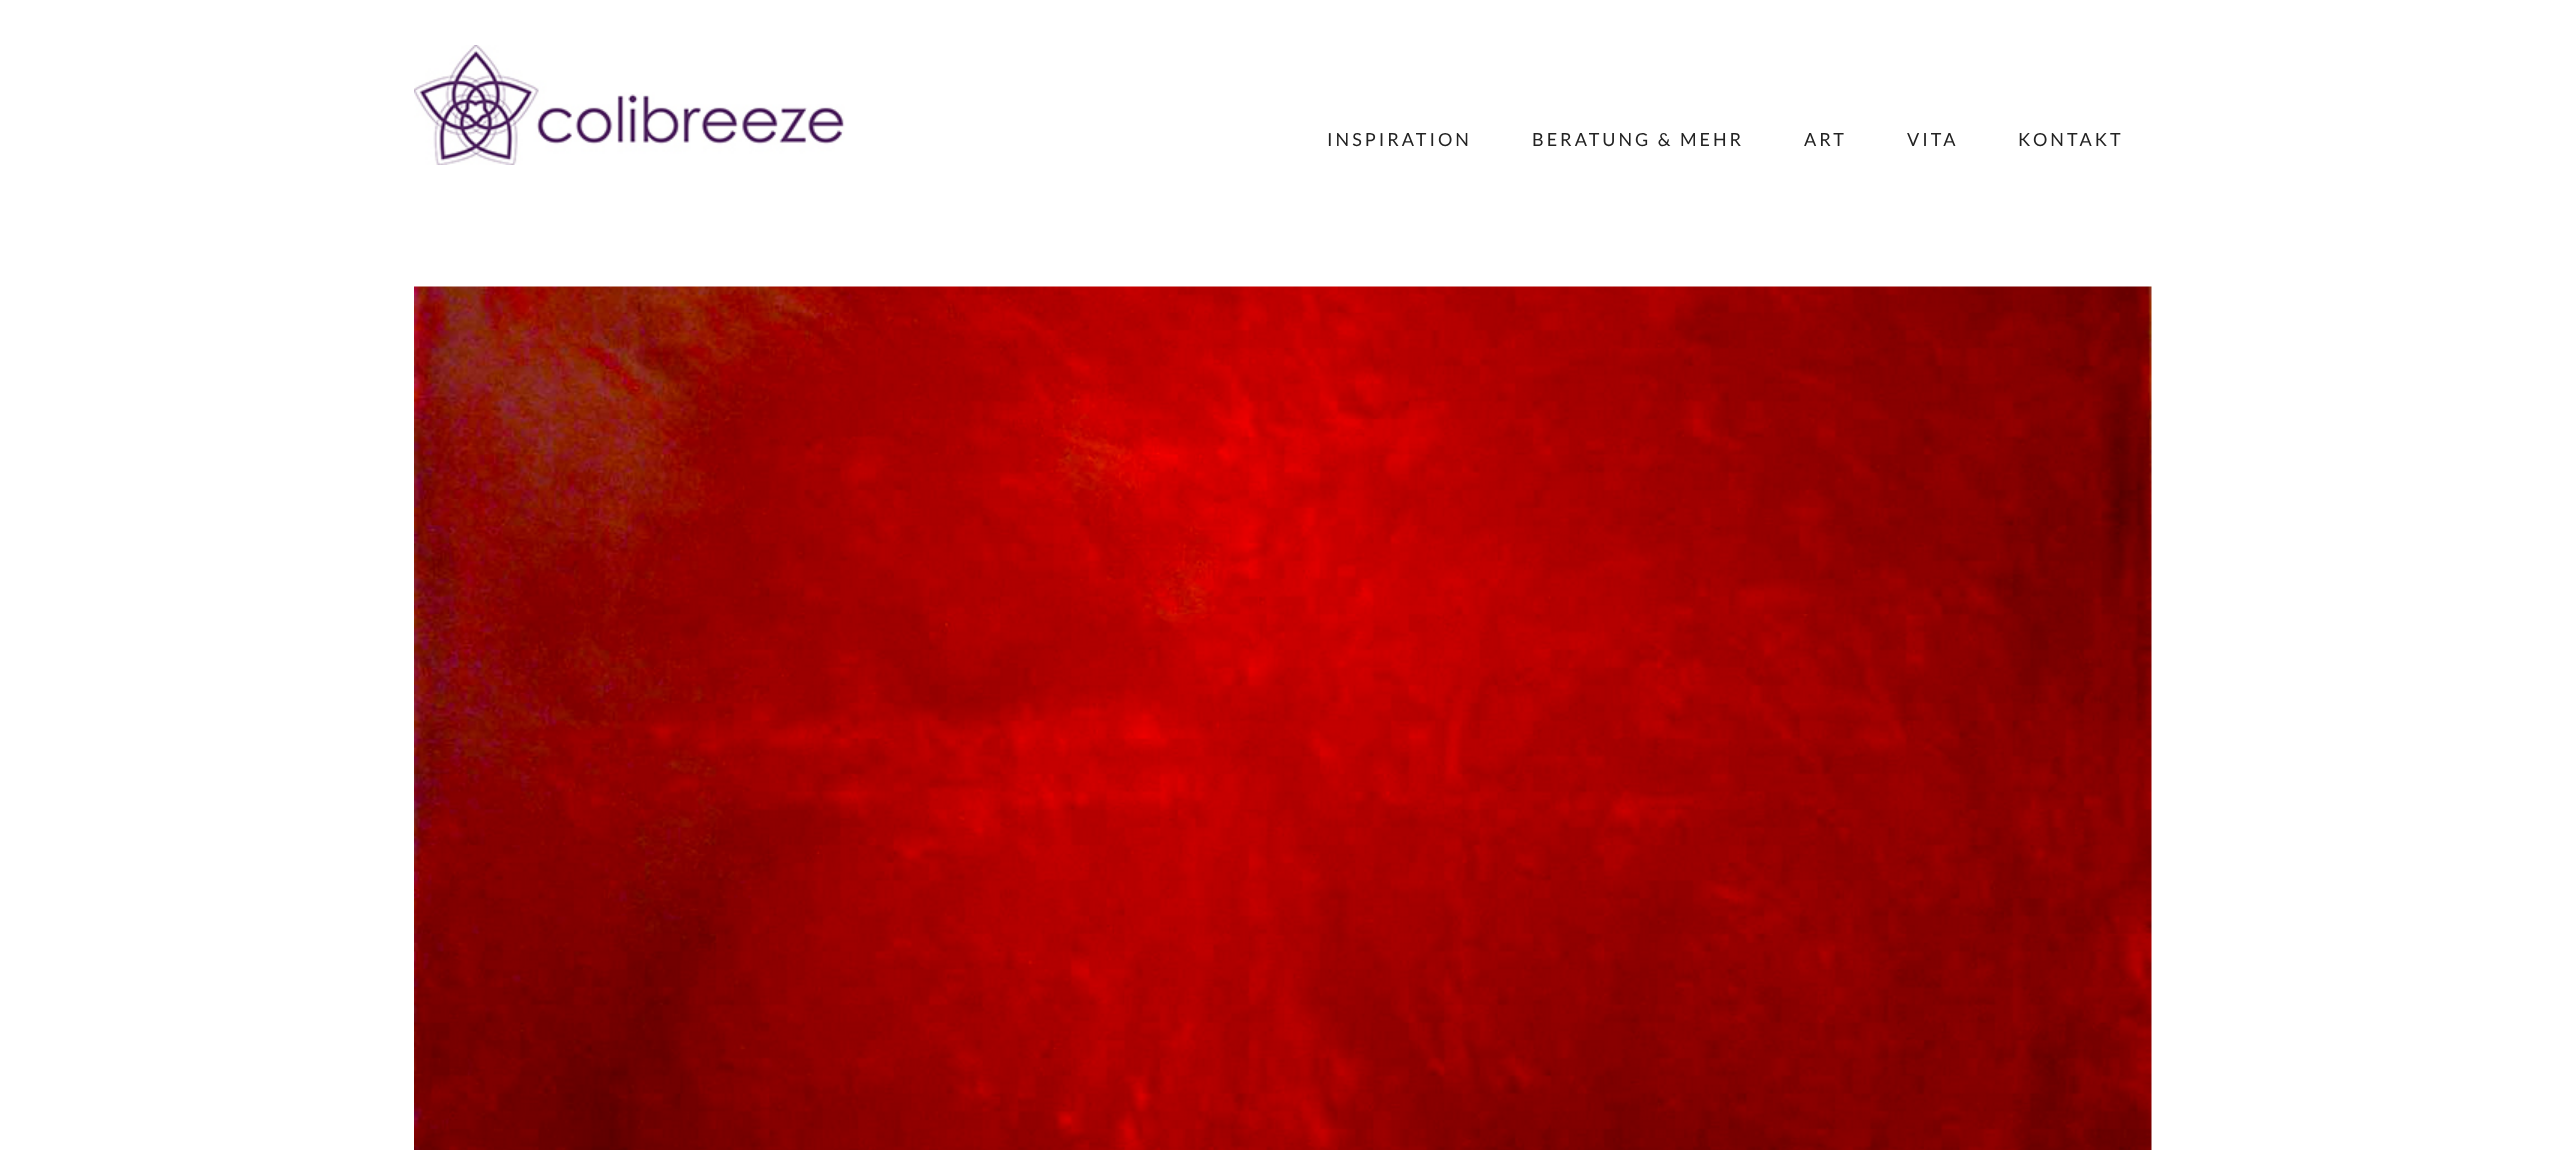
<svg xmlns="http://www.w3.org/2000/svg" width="2567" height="1150">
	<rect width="100%" height="100%" fill="#FFFFFF" />
	<image x="414" y="45" width="431" height="120" href="assets/img1.png" />
	<g font-family="Lato" font-size="18" letter-spacing="3" fill="#232323">
		<text x="1327" y="146">INSPIRATION</text>
		<text x="1532" y="146">BERATUNG &amp; MEHR</text>
		<text x="1804" y="146">ART</text>
		<text x="1907" y="146">VITA</text>
		<text x="2018" y="146">KONTAKT</text>
	</g>
	<image x="414" y="286" width="1738" height="864" href="assets/img2.png" />
</svg>
